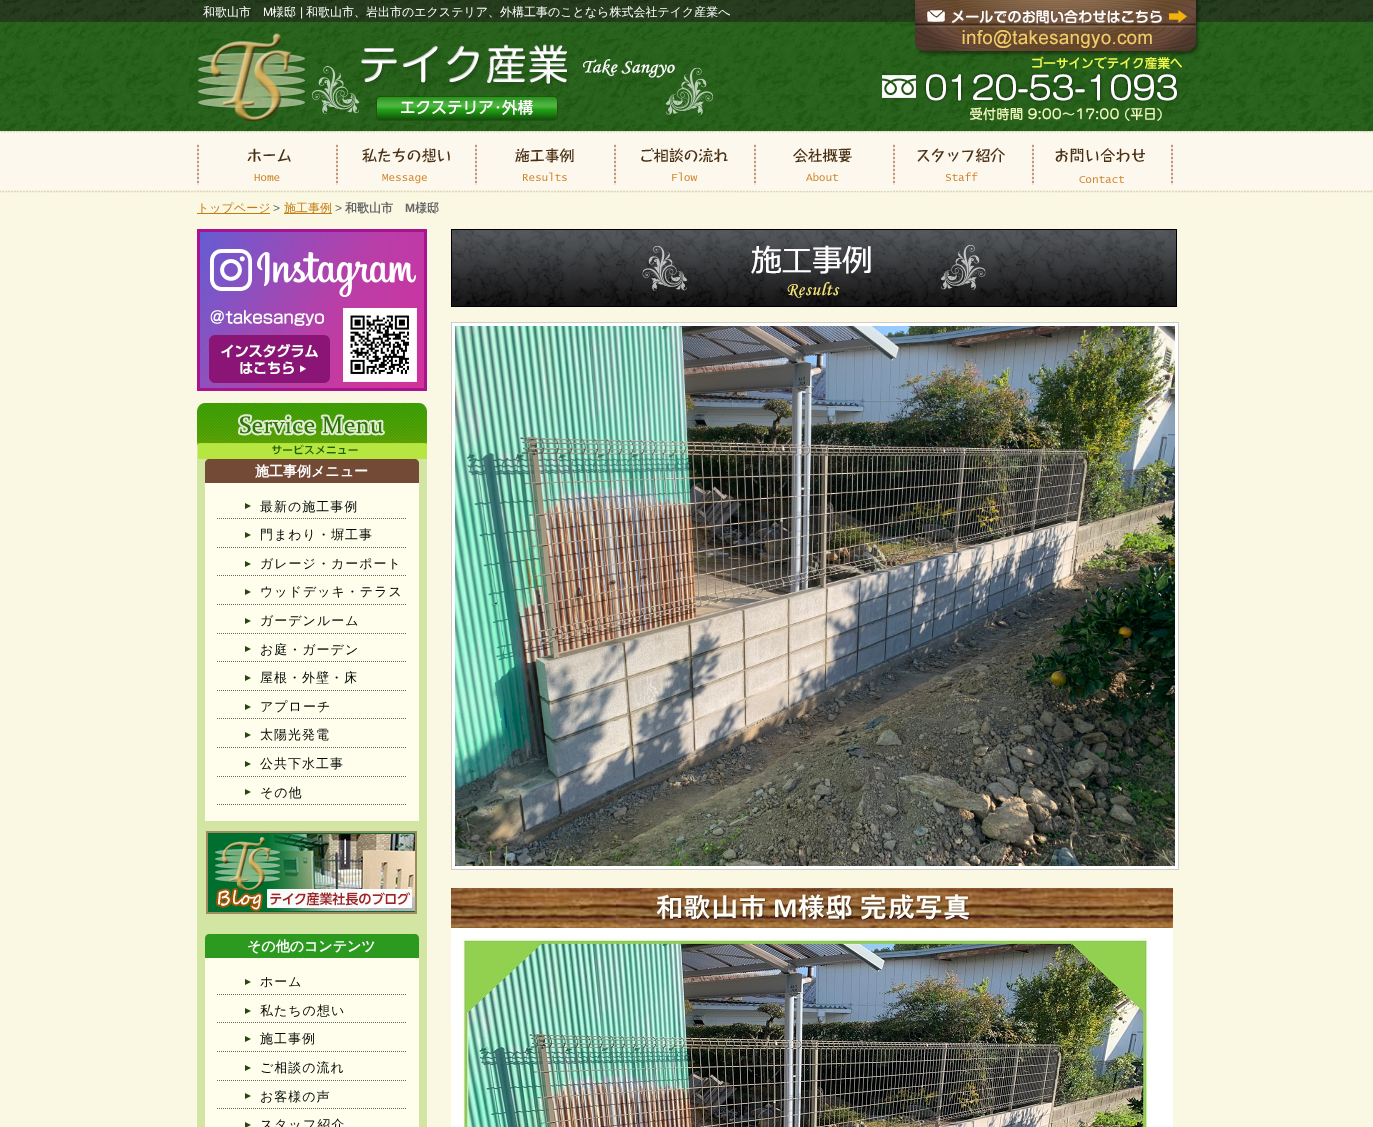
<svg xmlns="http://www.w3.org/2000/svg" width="1373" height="1127">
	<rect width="100%" height="100%" fill="#FAF8E3" />
	<image x="0" y="0" width="1373" height="193" href="assets/img1.png" />
	<text x="203" y="16" font-family="WenQuanYi Zen Hei" font-size="12" font-weight="500" fill="#FFFFFF">和歌山市</text>
	<text x="263" y="16" font-family="Liberation Sans" font-size="12" fill="#FFFFFF">M</text>
	<text x="272" y="16" font-family="WenQuanYi Zen Hei" font-size="12" font-weight="500" fill="#FFFFFF">様邸</text>
	<text x="300" y="16" font-family="Liberation Sans" font-size="12" fill="#FFFFFF">|</text>
	<text x="306" y="16" font-family="WenQuanYi Zen Hei" font-size="12" font-weight="500" fill="#FFFFFF">和歌山市、岩出市のエクステリア、外構工事のことなら株式会社テイク産業へ</text>
	<image x="882" y="0" width="319" height="122" href="assets/img2.png" />
	<image x="197" y="33" width="518" height="91" href="assets/img3.png" />
	<image x="197" y="144" width="140" height="47" href="assets/img4.png" />
	<image x="337" y="144" width="113" height="47" href="assets/img5.png" />
	<image x="475" y="144" width="140" height="47" href="assets/img6.png" />
	<image x="615" y="144" width="140" height="47" href="assets/img7.png" />
	<image x="755" y="144" width="138" height="47" href="assets/img8.png" />
	<image x="893" y="144" width="140" height="47" href="assets/img9.png" />
	<image x="1033" y="144" width="140" height="47" href="assets/img10.png" />
	<rect x="197" y="213" width="73" height="1" fill="#C37B14" />
	<text x="197" y="212" font-family="WenQuanYi Zen Hei" font-size="12" font-weight="500" fill="#C37B14">トップページ</text>
	<text x="273" y="212" font-family="Liberation Sans" font-size="12" fill="#666666">&gt;</text>
	<rect x="284" y="213" width="48" height="1" fill="#C37B14" />
	<text x="284" y="212" font-family="WenQuanYi Zen Hei" font-size="12" font-weight="500" fill="#C37B14">施工事例</text>
	<text x="335" y="212" font-family="Liberation Sans" font-size="12" fill="#666666">&gt;</text>
	<text x="345" y="212" font-family="WenQuanYi Zen Hei" font-size="12" font-weight="700" fill="#666666">和歌山市</text>
	<text x="405" y="212" font-family="Liberation Sans" font-size="12" font-weight="700" fill="#666666">M</text>
	<text x="415" y="212" font-family="WenQuanYi Zen Hei" font-size="12" font-weight="700" fill="#666666">様邸</text>
	<rect x="197" y="459" width="230" height="668" fill="#D2E5A3" />
	<image x="197" y="229" width="230" height="162" href="assets/img11.png" />
	<image x="197" y="401" width="230" height="58" href="assets/img12.png" />
	<path d="M209 459H415C417 459 419 461 419 463V483H205V463C205 461 207 459 209 459Z" fill="#734A36" />
	<text x="255" y="476" font-family="WenQuanYi Zen Hei" font-size="14" font-weight="700" fill="#FFFFFF">施工事例メニュー</text>
	<rect x="205" y="483" width="214" height="338" fill="#FFFEED" />
	<image x="245" y="503" width="6" height="6" href="assets/img13.png" />
	<path d="M217 518.5H407" fill="none" stroke="#666666" stroke-dasharray="1 1" />
	<text x="260" y="511" font-family="WenQuanYi Zen Hei" font-size="13" font-weight="500" letter-spacing="1" fill="#010800">最新の施工事例</text>
	<image x="245" y="532" width="6" height="6" href="assets/img13.png" />
	<path d="M217 547.5H407" fill="none" stroke="#666666" stroke-dasharray="1 1" />
	<text x="260" y="539" font-family="WenQuanYi Zen Hei" font-size="13" font-weight="500" letter-spacing="1" fill="#010800">門まわり・塀工事</text>
	<image x="245" y="561" width="6" height="6" href="assets/img13.png" />
	<path d="M217 575.5H407" fill="none" stroke="#666666" stroke-dasharray="1 1" />
	<text x="260" y="568" font-family="WenQuanYi Zen Hei" font-size="13" font-weight="500" letter-spacing="1" fill="#010800">ガレージ・カーポート</text>
	<image x="245" y="589" width="6" height="6" href="assets/img13.png" />
	<path d="M217 604.5H407" fill="none" stroke="#666666" stroke-dasharray="1 1" />
	<text x="260" y="596" font-family="WenQuanYi Zen Hei" font-size="13" font-weight="500" letter-spacing="1" fill="#010800">ウッドデッキ・テラス</text>
	<image x="245" y="618" width="6" height="6" href="assets/img13.png" />
	<path d="M217 633.5H407" fill="none" stroke="#666666" stroke-dasharray="1 1" />
	<text x="260" y="625" font-family="WenQuanYi Zen Hei" font-size="13" font-weight="500" letter-spacing="1" fill="#010800">ガーデンルーム</text>
	<image x="245" y="646" width="6" height="6" href="assets/img13.png" />
	<path d="M217 661.5H407" fill="none" stroke="#666666" stroke-dasharray="1 1" />
	<text x="260" y="654" font-family="WenQuanYi Zen Hei" font-size="13" font-weight="500" letter-spacing="1" fill="#010800">お庭・ガーデン</text>
	<image x="245" y="675" width="6" height="6" href="assets/img13.png" />
	<path d="M217 690.5H407" fill="none" stroke="#666666" stroke-dasharray="1 1" />
	<text x="260" y="682" font-family="WenQuanYi Zen Hei" font-size="13" font-weight="500" letter-spacing="1" fill="#010800">屋根・外壁・床</text>
	<image x="245" y="704" width="6" height="6" href="assets/img13.png" />
	<path d="M217 718.5H407" fill="none" stroke="#666666" stroke-dasharray="1 1" />
	<text x="260" y="711" font-family="WenQuanYi Zen Hei" font-size="13" font-weight="500" letter-spacing="1" fill="#010800">アプローチ</text>
	<image x="245" y="732" width="6" height="6" href="assets/img13.png" />
	<path d="M217 747.5H407" fill="none" stroke="#666666" stroke-dasharray="1 1" />
	<text x="260" y="739" font-family="WenQuanYi Zen Hei" font-size="13" font-weight="500" letter-spacing="1" fill="#010800">太陽光発電</text>
	<image x="245" y="761" width="6" height="6" href="assets/img13.png" />
	<path d="M217 776.5H407" fill="none" stroke="#666666" stroke-dasharray="1 1" />
	<text x="260" y="768" font-family="WenQuanYi Zen Hei" font-size="13" font-weight="500" letter-spacing="1" fill="#010800">公共下水工事</text>
	<image x="245" y="789" width="6" height="6" href="assets/img13.png" />
	<path d="M217 804.5H407" fill="none" stroke="#666666" stroke-dasharray="1 1" />
	<text x="260" y="797" font-family="WenQuanYi Zen Hei" font-size="13" font-weight="500" letter-spacing="1" fill="#010800">その他</text>
	<image x="206" y="831" width="211" height="83" href="assets/img14.png" />
	<path d="M209 934H415C417 934 419 936 419 938V958H205V938C205 936 207 934 209 934Z" fill="#2C9A1F" />
	<text x="247" y="951" font-family="WenQuanYi Zen Hei" font-size="14" font-weight="700" fill="#FFFFFF">その他のコンテンツ</text>
	<rect x="205" y="958" width="214" height="169" fill="#FFFEED" />
	<image x="245" y="979" width="6" height="6" href="assets/img13.png" />
	<path d="M217 994.5H407" fill="none" stroke="#666666" stroke-dasharray="1 1" />
	<text x="260" y="986" font-family="WenQuanYi Zen Hei" font-size="13" font-weight="500" letter-spacing="1" fill="#010800">ホーム</text>
	<image x="245" y="1008" width="6" height="6" href="assets/img13.png" />
	<path d="M217 1022.5H407" fill="none" stroke="#666666" stroke-dasharray="1 1" />
	<text x="260" y="1015" font-family="WenQuanYi Zen Hei" font-size="13" font-weight="500" letter-spacing="1" fill="#010800">私たちの想い</text>
	<image x="245" y="1036" width="6" height="6" href="assets/img13.png" />
	<path d="M217 1051.5H407" fill="none" stroke="#666666" stroke-dasharray="1 1" />
	<text x="260" y="1043" font-family="WenQuanYi Zen Hei" font-size="13" font-weight="500" letter-spacing="1" fill="#010800">施工事例</text>
	<image x="245" y="1065" width="6" height="6" href="assets/img13.png" />
	<path d="M217 1080.5H407" fill="none" stroke="#666666" stroke-dasharray="1 1" />
	<text x="260" y="1072" font-family="WenQuanYi Zen Hei" font-size="13" font-weight="500" letter-spacing="1" fill="#010800">ご相談の流れ</text>
	<image x="245" y="1093" width="6" height="6" href="assets/img13.png" />
	<path d="M217 1108.5H407" fill="none" stroke="#666666" stroke-dasharray="1 1" />
	<text x="260" y="1101" font-family="WenQuanYi Zen Hei" font-size="13" font-weight="500" letter-spacing="1" fill="#010800">お客様の声</text>
	<image x="245" y="1122" width="6" height="5" href="assets/img15.png" />
	<text x="260" y="1129" font-family="WenQuanYi Zen Hei" font-size="13" font-weight="500" letter-spacing="1" fill="#010800">スタッフ紹介</text>
	<image x="451" y="229" width="726" height="78" href="assets/img16.png" />
	<rect x="451.5" y="322.5" width="727" height="547" fill="#FFFFFF" stroke="#CCCCCC" />
	<image x="455" y="326" width="720" height="540" href="assets/img17.png" />
	<image x="451" y="888" width="722" height="40" href="assets/img18.png" />
	<image x="451" y="928" width="722" height="199" href="assets/img19.png" />
</svg>
